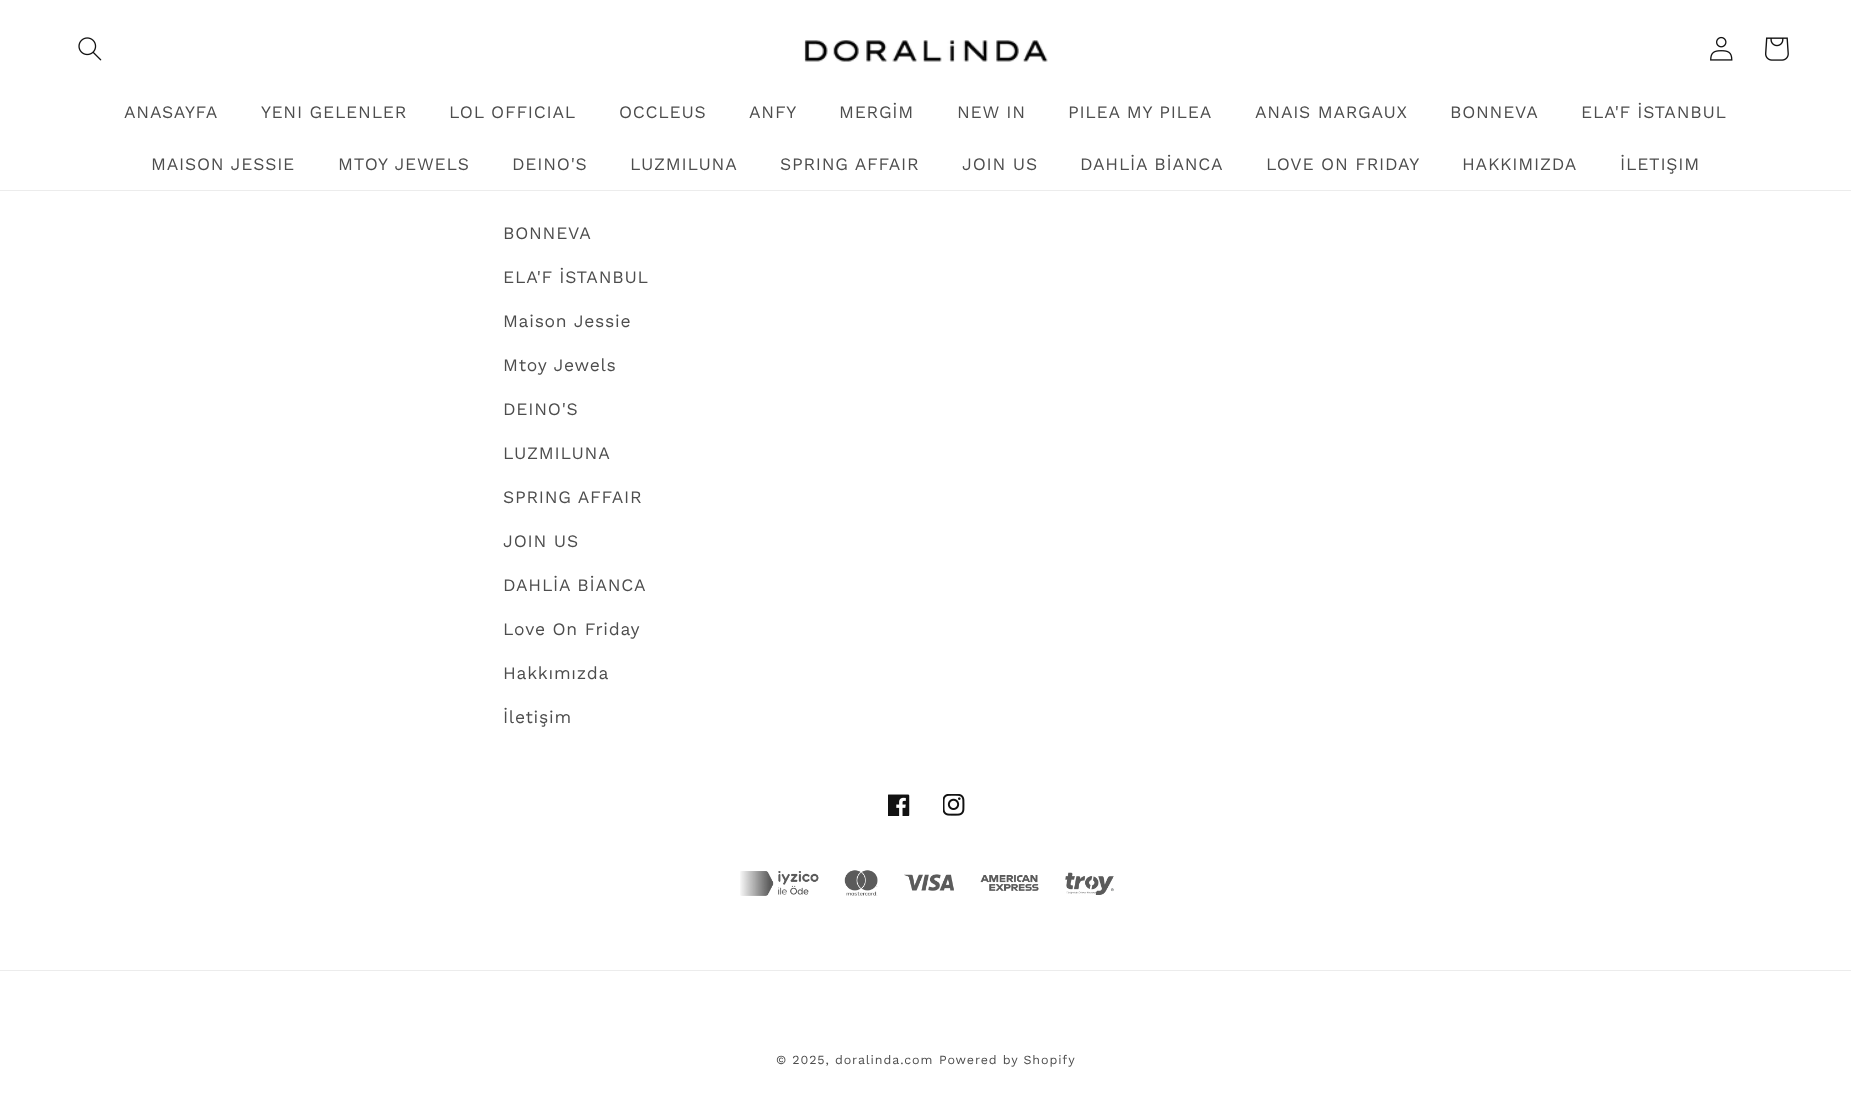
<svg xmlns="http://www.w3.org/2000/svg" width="1851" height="1110">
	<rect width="100%" height="100%" fill="#FFFFFF" />
	<rect x="0" y="190" width="1851" height="1" fill="#ECECEC" />
	<image x="78" y="37" width="24" height="24" href="assets/img1.png" />
	<image x="804" y="40" width="244" height="22" href="assets/img2.png" />
	<image x="1710" y="36" width="23" height="25" href="assets/img3.png" />
	<image x="1765" y="37" width="24" height="24" href="assets/img4.png" />
	<g font-family="Work Sans" font-size="17.5" letter-spacing="0.75" fill="#4D4D4D">
		<text x="124" y="118">ANASAYFA</text>
		<text x="261" y="118">YENI GELENLER</text>
		<text x="449" y="118">LOL OFFICIAL</text>
		<text x="619" y="118">OCCLEUS</text>
		<text x="749" y="118">ANFY</text>
		<text x="839" y="118">MERGİM</text>
		<text x="957" y="118">NEW IN</text>
		<text x="1068" y="118">PILEA MY PILEA</text>
		<text x="1255" y="118">ANAIS MARGAUX</text>
		<text x="1450" y="118">BONNEVA</text>
		<text x="1581" y="118">ELA'F İSTANBUL</text>
		<text x="151" y="170">MAISON JESSIE</text>
		<text x="338" y="170">MTOY JEWELS</text>
		<text x="512" y="170">DEINO'S</text>
		<text x="630" y="170">LUZMILUNA</text>
		<text x="780" y="170">SPRING AFFAIR</text>
		<text x="962" y="170">JOIN US</text>
		<text x="1080" y="170">DAHLİA BİANCA</text>
		<text x="1266" y="170">LOVE ON FRIDAY</text>
		<text x="1462" y="170">HAKKIMIZDA</text>
		<text x="1620" y="170">İLETIŞIM</text>
		<text x="503" y="239">BONNEVA</text>
		<text x="503" y="283">ELA'F İSTANBUL</text>
		<text x="503" y="327">Maison Jessie</text>
		<text x="503" y="371">Mtoy Jewels</text>
		<text x="503" y="415">DEINO'S</text>
		<text x="503" y="459">LUZMILUNA</text>
		<text x="503" y="503">SPRING AFFAIR</text>
		<text x="503" y="547">JOIN US</text>
		<text x="503" y="591">DAHLİA BİANCA</text>
		<text x="503" y="635">Love On Friday</text>
		<text x="503" y="679">Hakkımızda</text>
		<text x="503" y="723">İletişim</text>
	</g>
	<image x="888" y="794" width="22" height="22" href="assets/img5.png" />
	<image x="943" y="794" width="22" height="22" href="assets/img6.png" />
	<image x="740" y="870" width="374" height="26" href="assets/img7.png" />
	<rect x="0" y="970" width="1851" height="1" fill="#ECECEC" />
	<g font-family="Work Sans" font-size="12.5" letter-spacing="0.9" fill="#4D4D4D">
		<text x="776" y="1064">© 2025, doralinda.com</text>
		<text x="939" y="1064">Powered by Shopify</text>
	</g>
</svg>
